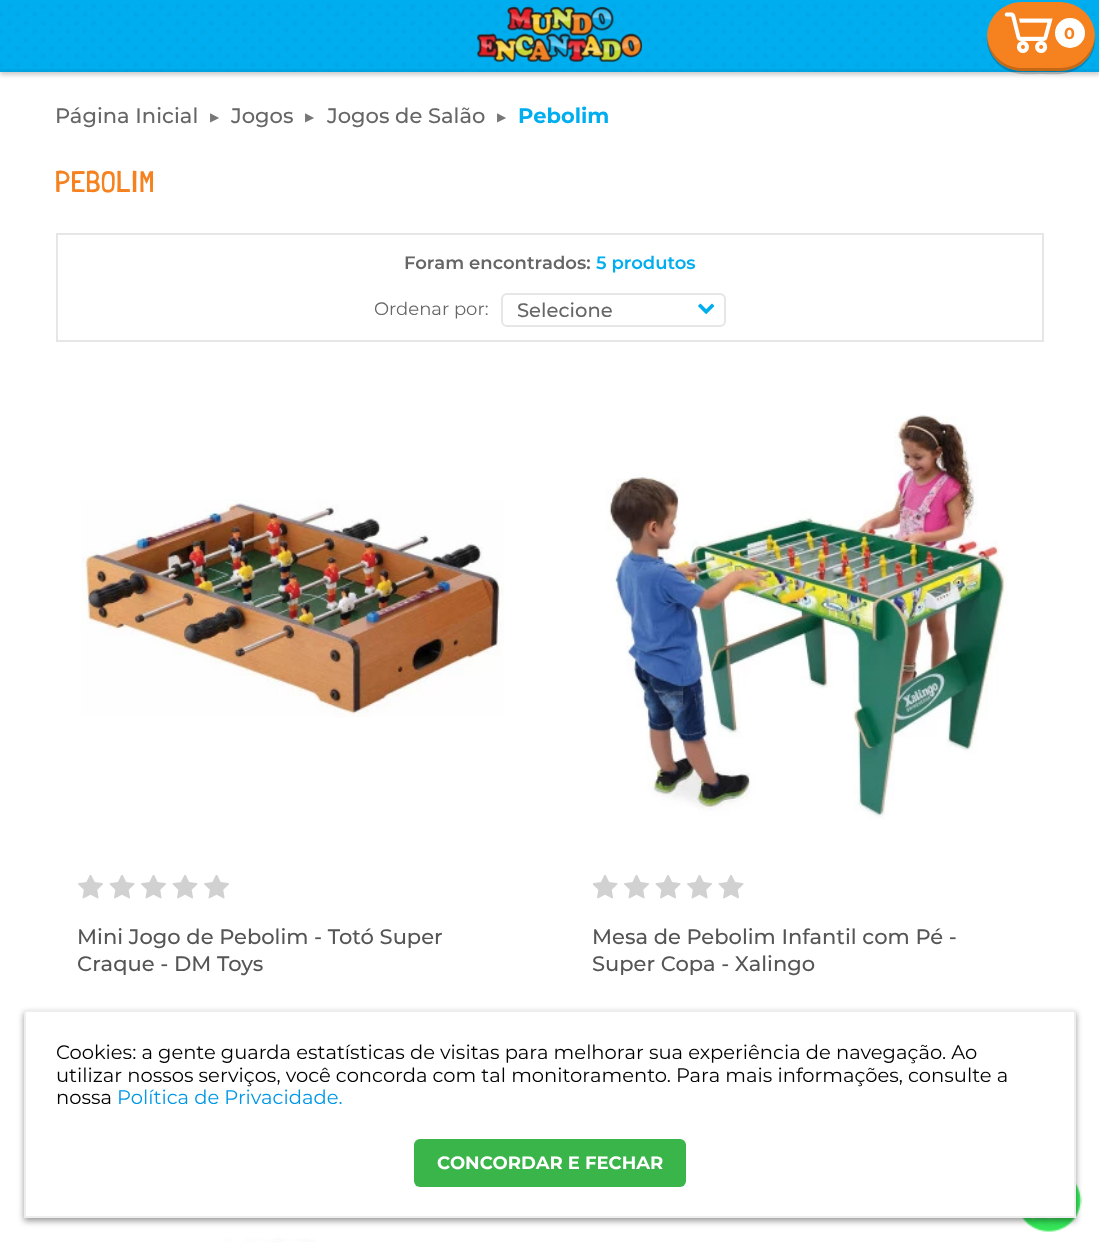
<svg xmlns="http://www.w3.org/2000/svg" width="1099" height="1242">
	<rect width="100%" height="100%" fill="#FFFFFF" />
	<rect x="0" y="3" width="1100" height="72" fill="#000000" fill-opacity="0.2" filter="blur(2px)" />
	<image x="0" y="0" width="1099" height="72" href="assets/img1.png" />
	<rect x="0" y="69" width="1099" height="3" fill="#000000" fill-opacity="0.05" />
	<image x="477" y="6" width="165" height="56" href="assets/img2.png" />
	<path d="M987 38C986 54 998 70 1015 73C1023 75 1032 74 1041 74C1050 74 1059 75 1067 73C1084 70 1096 54 1095 38C1094 56 1079 70 1060 70H1022C1003 70 988 56 987 38Z" fill="#000000" fill-opacity="0.2" />
	<rect x="987" y="2" width="108" height="69" rx="34.5" fill="#F5821F" />
	<path d="M987 35C986 51 998 67 1015 70C1023 72 1032 71 1041 71C1050 71 1059 72 1067 70C1084 67 1096 51 1095 35C1094 53 1079 68 1060 68H1022C1003 68 988 53 987 35Z" fill="#000000" fill-opacity="0.2" />
	<image x="1004" y="12" width="49" height="42" href="assets/img3.png" />
	<circle cx="1070" cy="33" r="15" fill="#FFFFFF" />
	<text x="1064" y="39" font-family="Montserrat" font-size="16" font-weight="700" fill="#F5821F">0</text>
	<text x="55" y="123" font-family="Montserrat" font-size="21" font-weight="500" fill="#666666">Página Inicial</text>
	<text x="210" y="121" font-family="DejaVu Sans" font-size="12" fill="#777777">▶</text>
	<text x="231" y="123" font-family="Montserrat" font-size="21" font-weight="500" fill="#666666">Jogos</text>
	<text x="305" y="121" font-family="DejaVu Sans" font-size="12" fill="#777777">▶</text>
	<text x="327" y="123" font-family="Montserrat" font-size="21" font-weight="500" fill="#666666">Jogos de Salão</text>
	<text x="497" y="121" font-family="DejaVu Sans" font-size="12" fill="#777777">▶</text>
	<text x="518" y="123" font-family="Montserrat" font-size="21" font-weight="700" fill="#00AEEF">Pebolim</text>
	<text x="55" y="192" font-family="Londrina Solid" font-size="30" font-weight="300" letter-spacing="0.75" fill="#F5821F">PEBOLIM</text>
	<rect x="57" y="234" width="986" height="107" fill="none" stroke="#E6E6E6" stroke-width="2" />
	<text x="404" y="269" font-family="Montserrat" font-size="18" font-weight="600" fill="#666666">Foram encontrados:</text>
	<text x="596" y="269" font-family="Montserrat" font-size="18" font-weight="600" fill="#00AEEF">5 produtos</text>
	<text x="374" y="315" font-family="Montserrat" font-size="18" fill="#666666">Ordenar por:</text>
	<rect x="502" y="294" width="223" height="32" rx="5" fill="none" stroke="#E6E6E6" stroke-width="2" />
	<text x="517" y="317" font-family="Montserrat" font-size="19.5" font-weight="500" fill="#666666">Selecione</text>
	<image x="698" y="303" width="17" height="11" href="assets/img4.png" />
	<image x="81" y="499" width="423" height="218" href="assets/img5.png" />
	<image x="78" y="875" width="25" height="24" href="assets/img6.png" />
	<image x="109" y="875" width="26" height="24" href="assets/img7.png" />
	<image x="141" y="875" width="25" height="24" href="assets/img6.png" />
	<image x="172" y="875" width="26" height="24" href="assets/img7.png" />
	<image x="204" y="875" width="25" height="24" href="assets/img6.png" />
	<g font-family="Montserrat" font-size="21" font-weight="500" fill="#555555">
		<text x="77" y="944">Mini Jogo de Pebolim - Totó Super</text>
		<text x="77" y="971">Craque - DM Toys</text>
	</g>
	<image x="606" y="414" width="402" height="406" href="assets/img8.png" />
	<image x="593" y="875" width="25" height="24" href="assets/img9.png" />
	<image x="624" y="875" width="25" height="24" href="assets/img6.png" />
	<image x="655" y="875" width="26" height="24" href="assets/img7.png" />
	<image x="687" y="875" width="25" height="24" href="assets/img6.png" />
	<image x="718" y="875" width="26" height="24" href="assets/img7.png" />
	<g font-family="Montserrat" font-size="21" font-weight="500" fill="#555555">
		<text x="592" y="944">Mesa de Pebolim Infantil com Pé -</text>
		<text x="592" y="971">Super Copa - Xalingo</text>
	</g>
	<image x="224" y="1238" width="92" height="4" href="assets/img10.png" />
	<image x="1021" y="1183" width="61" height="49" href="assets/img11.png" />
	<rect x="24" y="1013" width="1052" height="208" fill="#000000" fill-opacity="0.4" filter="blur(3px)" />
	<rect x="25" y="1011" width="1050" height="206" fill="#FFFFFF" stroke="#EEEEEE" stroke-width="2" />
	<g font-family="Montserrat" font-size="19.5" fill="#000000">
		<text x="56" y="1059">Cookies: a gente guarda estatísticas de visitas para melhorar sua experiência de navegação. Ao</text>
		<text x="56" y="1082">utilizar nossos serviços, você concorda com tal monitoramento. Para mais informações, consulte a</text>
		<text x="56" y="1104">nossa</text>
	</g>
	<text x="117" y="1104" font-family="Montserrat" font-size="19.5" fill="#0097E5">Política de Privacidade.</text>
	<rect x="414" y="1139" width="272" height="48" rx="6" fill="#39B54A" />
	<text x="437" y="1169" font-family="Montserrat" font-size="18" font-weight="700" fill="#FFFFFF">CONCORDAR E FECHAR</text>
</svg>
